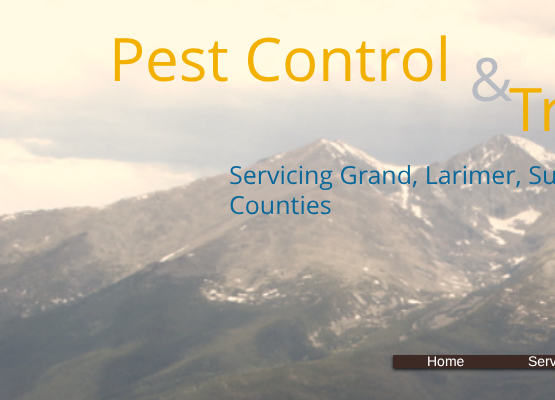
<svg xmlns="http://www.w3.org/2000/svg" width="555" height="400">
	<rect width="100%" height="100%" fill="#FFFFFF" />
	<image x="0" y="0" width="555" height="400" href="assets/img1.png" />
	<text x="109" y="81" font-family="Open Sans" font-size="60" fill="#F2B100">Pest Control</text>
	<text x="469" y="101" font-family="Open Sans" font-size="60" fill="#B8BBC1">&amp;</text>
	<text x="509" y="131" font-family="Open Sans" font-size="60" fill="#F2B100">Tr</text>
	<g font-family="Open Sans" font-size="25" fill="#0B689A">
		<text x="229" y="184">Servicing Grand, Larimer, Su</text>
		<text x="229" y="214">Counties</text>
	</g>
	<rect x="393" y="357" width="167" height="13" fill="#000000" fill-opacity="0.7" filter="blur(1.5px)" />
	<rect x="393" y="355" width="162" height="13" fill="#3E2A24" />
	<g font-family="Liberation Sans" font-size="14" fill="#FFFFFF">
		<text x="427" y="366">Home</text>
		<text x="528" y="366">Serv</text>
	</g>
</svg>
